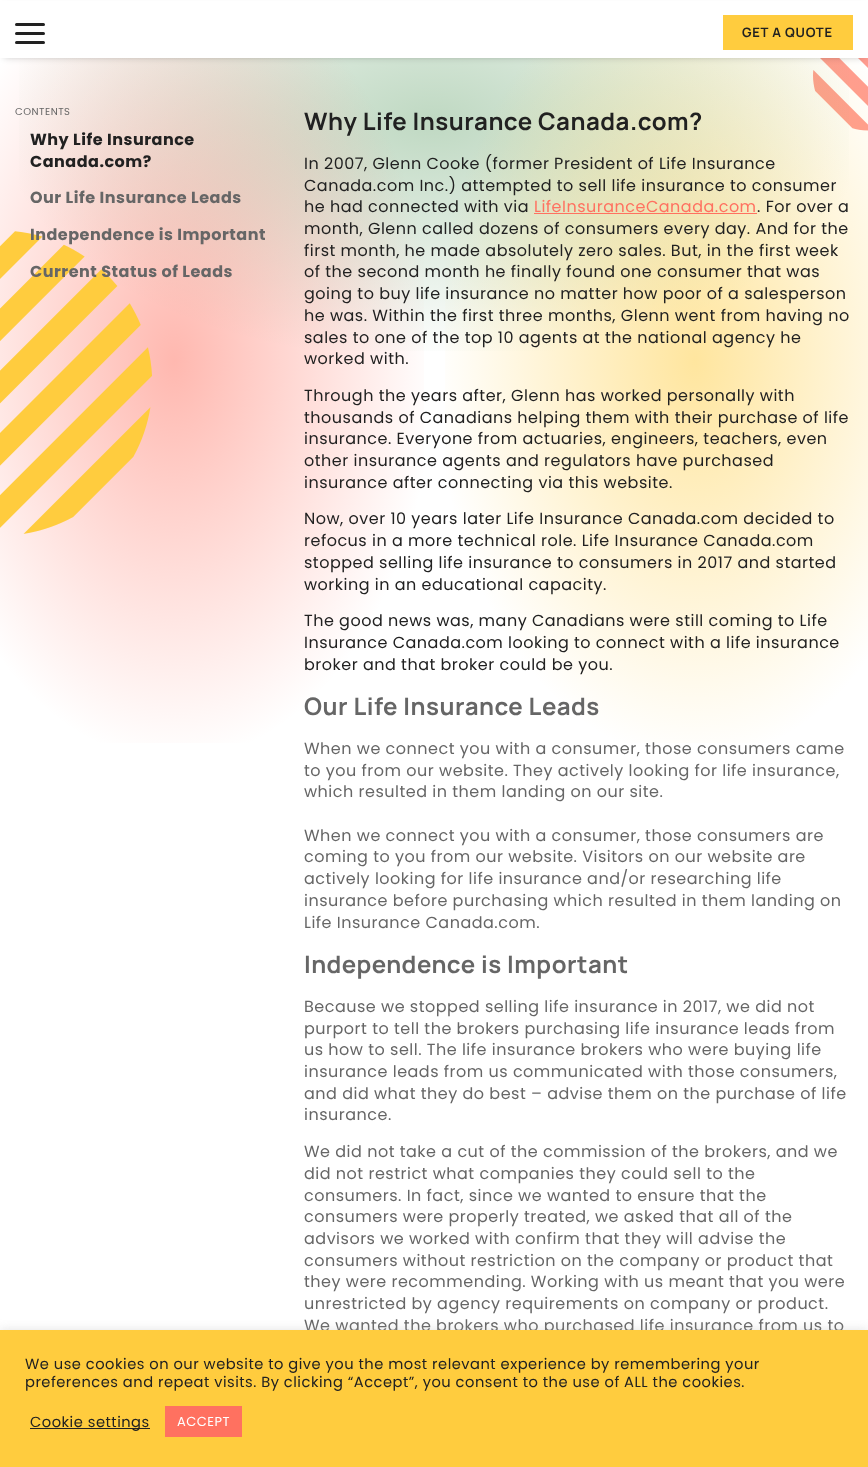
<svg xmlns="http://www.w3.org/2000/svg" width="868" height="1467">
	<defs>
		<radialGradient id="g1" gradientUnits="userSpaceOnUse" cx="0" cy="0" r="1" gradientTransform="matrix(434 0 0 240 434 121)"><stop offset="0" stop-color="#7FB285" stop-opacity="0.5" /><stop offset="1" stop-color="#7FB285" stop-opacity="0" /></radialGradient>
		<radialGradient id="g2" gradientUnits="userSpaceOnUse" cx="0" cy="0" r="1" gradientTransform="matrix(261 0 0 400 174 361)"><stop offset="0" stop-color="#FF7160" stop-opacity="0.5" /><stop offset="1" stop-color="#FF7160" stop-opacity="0" /></radialGradient>
		<radialGradient id="g3" gradientUnits="userSpaceOnUse" cx="0" cy="0" r="1" gradientTransform="matrix(261 0 0 400 695 361)"><stop offset="0" stop-color="#FFCC3E" stop-opacity="0.5" /><stop offset="1" stop-color="#FFCC3E" stop-opacity="0" /></radialGradient>
	</defs>
	<rect width="100%" height="100%" fill="#FFFFFF" />
	<image x="813" y="58" width="55" height="73" href="assets/img1.png" />
	<rect x="19" y="58" width="830" height="293" fill="url(#g1)" />
	<rect x="0" y="58" width="424" height="685" fill="url(#g2)" />
	<rect x="445" y="58" width="423" height="685" fill="url(#g3)" />
	<rect x="4" y="7" width="860" height="50" fill="#000000" fill-opacity="0.25" filter="blur(3.5px)" />
	<rect x="0" y="1" width="868" height="57" fill="#FFFFFF" />
	<rect x="15" y="23" width="30" height="3" rx="1.5" fill="#212121" />
	<rect x="15" y="32" width="30" height="3" rx="1.5" fill="#212121" />
	<rect x="15" y="41" width="30" height="3" rx="1.5" fill="#212121" />
	<rect x="723" y="15" width="130" height="35" fill="#FFCC3E" />
	<text x="742" y="37" font-family="Manrope" font-size="13" font-weight="700" letter-spacing="0.75" fill="#212121">GET A QUOTE</text>
	<text x="15" y="115" font-family="Poppins" font-size="10" letter-spacing="0.5" fill="#666666">CONTENTS</text>
	<g font-family="Poppins" font-size="16" font-weight="700" letter-spacing="0.5" fill="#212121">
		<text x="30" y="145">Why Life Insurance</text>
		<text x="30" y="167">Canada.com?</text>
	</g>
	<text x="30" y="203" font-family="Poppins" font-size="16" font-weight="700" letter-spacing="0.5" fill="#666666">Our Life Insurance Leads</text>
	<image x="0" y="231" width="152" height="303" href="assets/img2.png" />
	<g font-family="Poppins" font-size="16" font-weight="700" letter-spacing="0.5" fill="#666666">
		<text x="30" y="240">Independence is Important</text>
		<text x="30" y="277">Current Status of Leads</text>
	</g>
	<text x="304" y="130" font-family="Manrope" font-size="24" font-weight="700" letter-spacing="0.5" fill="#212121">Why Life Insurance Canada.com?</text>
	<g font-family="Poppins" font-size="16" letter-spacing="0.5" fill="#212121">
		<text x="304" y="169">In 2007, Glenn Cooke (former President of Life Insurance</text>
		<text x="304" y="191">Canada.com Inc.) attempted to sell life insurance to consumer</text>
		<text x="304" y="212">he had connected with via</text>
	</g>
	<text x="534" y="212" font-family="Poppins" font-size="16" letter-spacing="0.5" fill="#FF7160">LifeInsuranceCanada.com</text>
	<rect x="534" y="213" width="223" height="1" fill="#FF7160" />
	<g font-family="Poppins" font-size="16" letter-spacing="0.5" fill="#212121">
		<text x="757" y="212">. For over a</text>
		<text x="304" y="234">month, Glenn called dozens of consumers every day. And for the</text>
		<text x="304" y="256">first month, he made absolutely zero sales. But, in the first week</text>
		<text x="304" y="277">of the second month he finally found one consumer that was</text>
		<text x="304" y="299">going to buy life insurance no matter how poor of a salesperson</text>
		<text x="304" y="321">he was. Within the first three months, Glenn went from having no</text>
		<text x="304" y="343">sales to one of the top 10 agents at the national agency he</text>
		<text x="304" y="364">worked with.</text>
		<text x="304" y="401">Through the years after, Glenn has worked personally with</text>
		<text x="304" y="423">thousands of Canadians helping them with their purchase of life</text>
		<text x="304" y="444">insurance. Everyone from actuaries, engineers, teachers, even</text>
		<text x="304" y="466">other insurance agents and regulators have purchased</text>
		<text x="304" y="488">insurance after connecting via this website.</text>
		<text x="304" y="524">Now, over 10 years later Life Insurance Canada.com decided to</text>
		<text x="304" y="546">refocus in a more technical role. Life Insurance Canada.com</text>
		<text x="304" y="568">stopped selling life insurance to consumers in 2017 and started</text>
		<text x="304" y="590">working in an educational capacity.</text>
		<text x="304" y="626">The good news was, many Canadians were still coming to Life</text>
		<text x="304" y="648">Insurance Canada.com looking to connect with a life insurance</text>
		<text x="304" y="670">broker and that broker could be you.</text>
	</g>
	<text x="304" y="715" font-family="Manrope" font-size="24" font-weight="700" letter-spacing="0.5" fill="#666666">Our Life Insurance Leads</text>
	<g font-family="Poppins" font-size="16" letter-spacing="0.5" fill="#666666">
		<text x="304" y="754">When we connect you with a consumer, those consumers came</text>
		<text x="304" y="776">to you from our website. They actively looking for life insurance,</text>
		<text x="304" y="797">which resulted in them landing on our site.</text>
		<text x="304" y="841">When we connect you with a consumer, those consumers are</text>
		<text x="304" y="862">coming to you from our website. Visitors on our website are</text>
		<text x="304" y="884">actively looking for life insurance and/or researching life</text>
		<text x="304" y="906">insurance before purchasing which resulted in them landing on</text>
		<text x="304" y="928">Life Insurance Canada.com.</text>
	</g>
	<text x="304" y="973" font-family="Manrope" font-size="24" font-weight="700" letter-spacing="0.5" fill="#666666">Independence is Important</text>
	<g font-family="Poppins" font-size="16" letter-spacing="0.5" fill="#666666">
		<text x="304" y="1012">Because we stopped selling life insurance in 2017, we did not</text>
		<text x="304" y="1034">purport to tell the brokers purchasing life insurance leads from</text>
		<text x="304" y="1055">us how to sell. The life insurance brokers who were buying life</text>
		<text x="304" y="1077">insurance leads from us communicated with those consumers,</text>
		<text x="304" y="1099">and did what they do best – advise them on the purchase of life</text>
		<text x="304" y="1120">insurance.</text>
		<text x="304" y="1157">We did not take a cut of the commission of the brokers, and we</text>
		<text x="304" y="1179">did not restrict what companies they could sell to the</text>
		<text x="304" y="1201">consumers. In fact, since we wanted to ensure that the</text>
		<text x="304" y="1222">consumers were properly treated, we asked that all of the</text>
		<text x="304" y="1244">advisors we worked with confirm that they will advise the</text>
		<text x="304" y="1266">consumers without restriction on the company or product that</text>
		<text x="304" y="1287">they were recommending. Working with us meant that you were</text>
		<text x="304" y="1309">unrestricted by agency requirements on company or product.</text>
		<text x="304" y="1331">We wanted the brokers who purchased life insurance from us to</text>
	</g>
	<rect x="0" y="1329" width="868" height="137" fill="#ACABAB" fill-opacity="0.3" filter="blur(5px)" />
	<rect x="0" y="1330" width="868" height="137" fill="#FFCC3E" />
	<g font-family="Poppins" font-size="14.67" letter-spacing="0.5" fill="#212121">
		<text x="25" y="1369">We use cookies on our website to give you the most relevant experience by remembering your</text>
		<text x="25" y="1387">preferences and repeat visits. By clicking “Accept”, you consent to the use of ALL the cookies.</text>
	</g>
	<rect x="30" y="1428" width="120" height="1" fill="#212121" />
	<text x="30" y="1427" font-family="Poppins" font-size="14.67" letter-spacing="0.5" fill="#212121">Cookie settings</text>
	<rect x="165" y="1406" width="77" height="31" fill="#FF7160" />
	<text x="177" y="1426" font-family="Poppins" font-size="13" letter-spacing="0.5" fill="#FFFFFF">ACCEPT</text>
</svg>
